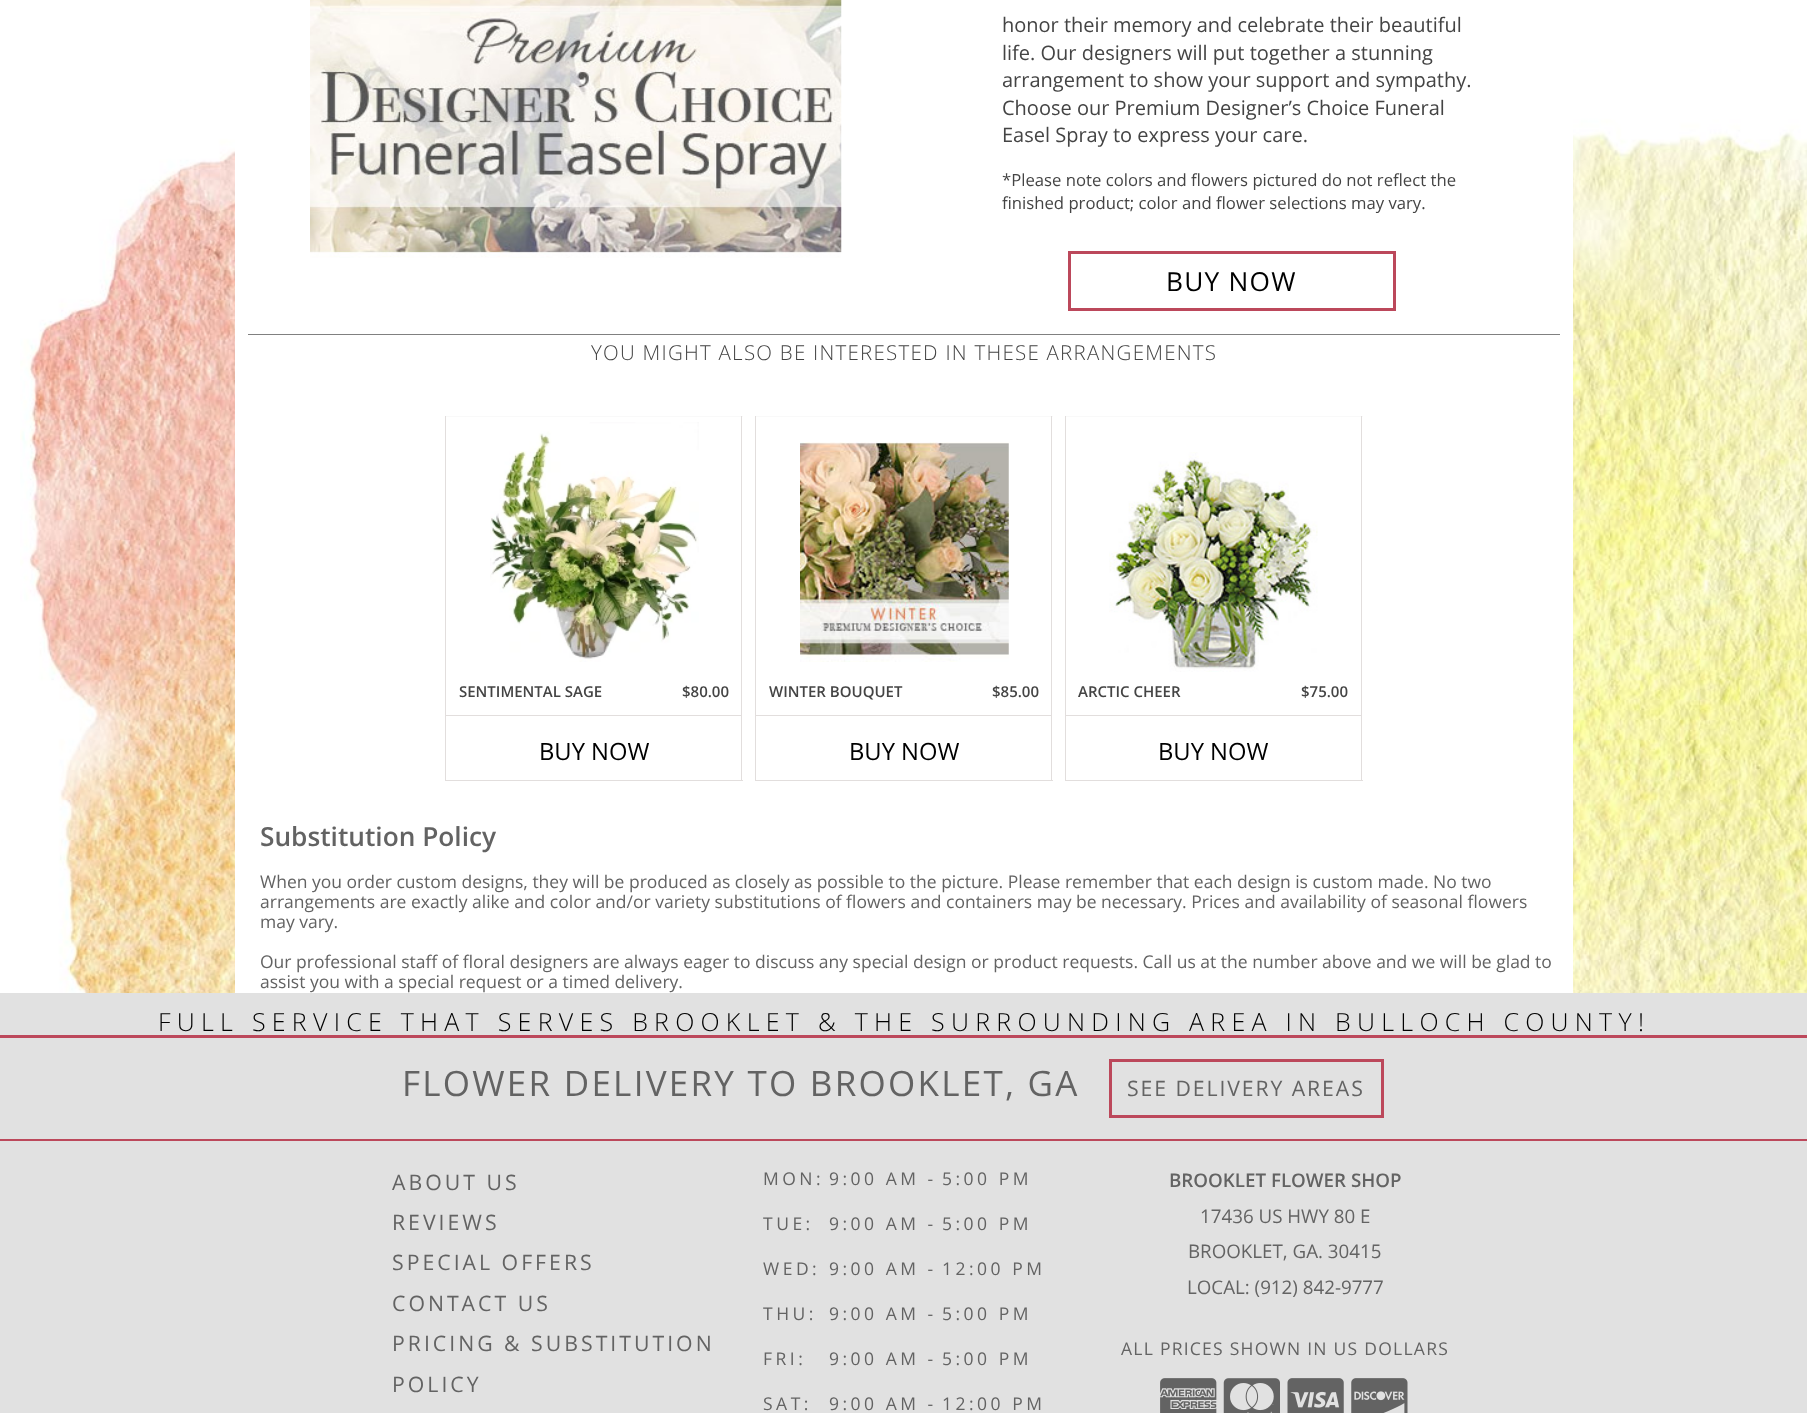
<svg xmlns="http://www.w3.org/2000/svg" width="1807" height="1413">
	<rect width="100%" height="100%" fill="#FFFFFF" />
	<image x="20" y="99" width="1787" height="894" href="assets/img1.png" />
	<rect x="235" y="99" width="1338" height="894" fill="#FFFFFF" />
	<image x="310" y="0" width="532" height="258" href="assets/img2.png" />
	<g font-family="Open Sans" font-size="20" fill="#444444">
		<text x="1002" y="32">honor their memory and celebrate their beautiful</text>
		<text x="1002" y="60">life. Our designers will put together a stunning</text>
		<text x="1002" y="87">arrangement to show your support and sympathy.</text>
		<text x="1002" y="115">Choose our Premium Designer’s Choice Funeral</text>
		<text x="1002" y="142">Easel Spray to express your care.</text>
	</g>
	<g font-family="Open Sans" font-size="16.7" fill="#444444">
		<text x="1002" y="186">*Please note colors and flowers pictured do not reflect the</text>
		<text x="1002" y="209">finished product; color and flower selections may vary.</text>
	</g>
	<rect x="1069.5" y="252.5" width="325" height="57" fill="none" stroke="#BC485B" stroke-width="3" />
	<text x="1166" y="291" font-family="Open Sans" font-size="26.25" letter-spacing="1.25" fill="#000000">BUY NOW</text>
	<rect x="248" y="334" width="1312" height="1" fill="#808080" />
	<text x="591" y="360" font-family="Open Sans" font-size="20.5" font-weight="300" letter-spacing="1.25" fill="#444444">YOU MIGHT ALSO BE INTERESTED IN THESE ARRANGEMENTS</text>
	<rect x="445" y="416" width="298" height="1" fill="#F9F9F9" />
	<rect x="741" y="416" width="1" height="365" fill="#E2DEDD" />
	<rect x="445" y="780" width="298" height="1" fill="#E2DEDD" />
	<rect x="445" y="416" width="1" height="365" fill="#E2DEDD" />
	<image x="490" y="422" width="209" height="240" href="assets/img3.png" />
	<g font-family="Open Sans" font-size="15" font-weight="600" fill="#444444">
		<text x="459" y="697">SENTIMENTAL SAGE</text>
		<text x="682" y="697">$80.00</text>
	</g>
	<rect x="446" y="715" width="295" height="1" fill="#E2DEDD" />
	<text x="539" y="760" font-family="Open Sans" font-size="23.75" fill="#000000">BUY NOW</text>
	<rect x="755" y="416" width="298" height="1" fill="#F9F9F9" />
	<rect x="1051" y="416" width="1" height="365" fill="#E2DEDD" />
	<rect x="755" y="780" width="298" height="1" fill="#E2DEDD" />
	<rect x="755" y="416" width="1" height="365" fill="#E2DEDD" />
	<image x="800" y="442" width="209" height="220" href="assets/img4.png" />
	<g font-family="Open Sans" font-size="15" font-weight="600" fill="#444444">
		<text x="769" y="697">WINTER BOUQUET</text>
		<text x="992" y="697">$85.00</text>
	</g>
	<rect x="756" y="715" width="295" height="1" fill="#E2DEDD" />
	<text x="849" y="760" font-family="Open Sans" font-size="23.75" fill="#000000">BUY NOW</text>
	<rect x="1065" y="416" width="298" height="1" fill="#F9F9F9" />
	<rect x="1361" y="416" width="1" height="365" fill="#E2DEDD" />
	<rect x="1065" y="780" width="298" height="1" fill="#E2DEDD" />
	<rect x="1065" y="416" width="1" height="365" fill="#E2DEDD" />
	<image x="1109" y="452" width="209" height="220" href="assets/img5.png" />
	<g font-family="Open Sans" font-size="15" font-weight="600" fill="#444444">
		<text x="1078" y="697">ARCTIC CHEER</text>
		<text x="1301" y="697">$75.00</text>
	</g>
	<rect x="1066" y="715" width="295" height="1" fill="#E2DEDD" />
	<text x="1158" y="760" font-family="Open Sans" font-size="23.75" fill="#000000">BUY NOW</text>
	<text x="260" y="846" font-family="Open Sans" font-size="26.25" font-weight="600" fill="#636363">Substitution Policy</text>
	<g font-family="Open Sans" font-size="17.5" fill="#636363">
		<text x="260" y="888">When you order custom designs, they will be produced as closely as possible to the picture. Please remember that each design is custom made. No two</text>
		<text x="260" y="908">arrangements are exactly alike and color and/or variety substitutions of flowers and containers may be necessary. Prices and availability of seasonal flowers</text>
		<text x="260" y="928">may vary.</text>
		<text x="260" y="968">Our professional staff of floral designers are always eager to discuss any special design or product requests. Call us at the number above and we will be glad to</text>
		<text x="260" y="988">assist you with a special request or a timed delivery.</text>
	</g>
	<rect x="0" y="993" width="1807" height="146" fill="#E1E1E1" />
	<text x="158" y="1031" font-family="Open Sans" font-size="25" font-weight="300" letter-spacing="6.25" fill="#000000">FULL SERVICE THAT SERVES BROOKLET &amp; THE SURROUNDING AREA IN BULLOCH COUNTY!</text>
	<rect x="0" y="1035" width="1807" height="3" fill="#BC485B" />
	<rect x="0" y="1139" width="1807" height="2" fill="#BC485B" />
	<text x="402" y="1096" font-family="Open Sans" font-size="35" letter-spacing="2.25" fill="#636363">FLOWER DELIVERY TO BROOKLET, GA</text>
	<rect x="1110.5" y="1060.5" width="272" height="56" fill="none" stroke="#BC485B" stroke-width="3" />
	<text x="1127" y="1096" font-family="Open Sans" font-size="21.25" letter-spacing="1.9" fill="#636363">SEE DELIVERY AREAS</text>
	<rect x="0" y="1141" width="1807" height="272" fill="#E1E1E1" />
	<g font-family="Open Sans" font-size="21.25" letter-spacing="3" fill="#636363">
		<text x="392" y="1190">ABOUT US</text>
		<text x="392" y="1230">REVIEWS</text>
		<text x="392" y="1270">SPECIAL OFFERS</text>
		<text x="392" y="1311">CONTACT US</text>
		<text x="392" y="1351">PRICING &amp; SUBSTITUTION</text>
		<text x="392" y="1392">POLICY</text>
	</g>
	<g font-family="Open Sans" font-size="17.5" letter-spacing="3.5" fill="#636363">
		<text x="763" y="1185">MON:</text>
		<text x="829" y="1185">9:00 AM -</text>
		<text x="942" y="1185">5:00 PM</text>
		<text x="763" y="1230">TUE:</text>
		<text x="829" y="1230">9:00 AM -</text>
		<text x="942" y="1230">5:00 PM</text>
		<text x="763" y="1275">WED:</text>
		<text x="829" y="1275">9:00 AM -</text>
		<text x="942" y="1275">12:00 PM</text>
		<text x="763" y="1320">THU:</text>
		<text x="829" y="1320">9:00 AM -</text>
		<text x="942" y="1320">5:00 PM</text>
		<text x="763" y="1365">FRI:</text>
		<text x="829" y="1365">9:00 AM -</text>
		<text x="942" y="1365">5:00 PM</text>
		<text x="763" y="1410">SAT:</text>
		<text x="829" y="1410">9:00 AM -</text>
		<text x="942" y="1410">12:00 PM</text>
	</g>
	<text x="1169" y="1187" font-family="Open Sans" font-size="18.75" font-weight="600" fill="#636363">BROOKLET FLOWER SHOP</text>
	<g font-family="Open Sans" font-size="18.75" fill="#636363">
		<text x="1200" y="1223">17436 US HWY 80 E</text>
		<text x="1188" y="1258">BROOKLET, GA. 30415</text>
		<text x="1187" y="1294">LOCAL: (912) 842-9777</text>
	</g>
	<text x="1121" y="1355" font-family="Open Sans" font-size="17.5" letter-spacing="1.25" fill="#636363">ALL PRICES SHOWN IN US DOLLARS</text>
	<image x="1160" y="1378" width="57" height="35" href="assets/img6.png" />
	<image x="1223" y="1378" width="57" height="35" href="assets/img7.png" />
	<image x="1287" y="1378" width="57" height="35" href="assets/img8.png" />
	<image x="1351" y="1378" width="57" height="35" href="assets/img9.png" />
</svg>
